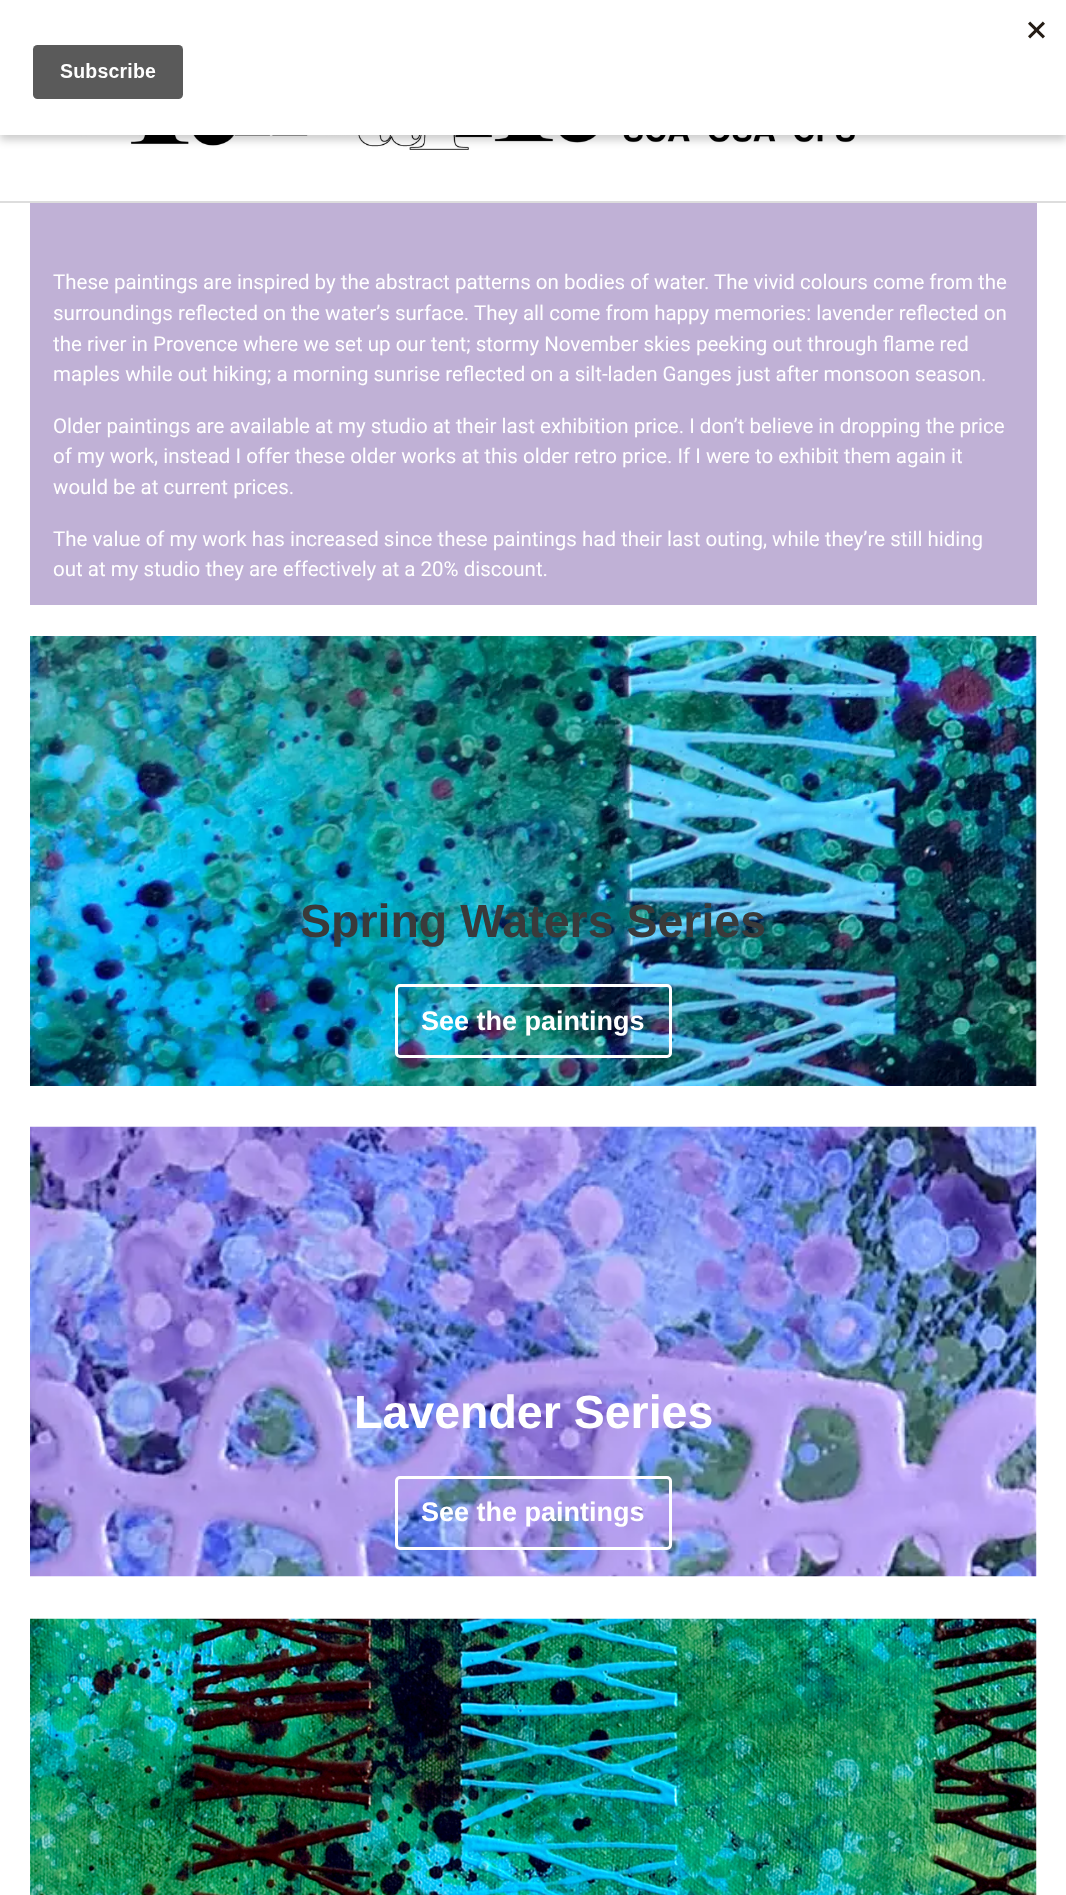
<svg xmlns="http://www.w3.org/2000/svg" width="1066" height="1895">
	<rect width="100%" height="100%" fill="#FFFFFF" />
	<image x="30" y="135" width="825" height="15" href="assets/img2.png" />
	<rect x="0" y="5" width="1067" height="135" fill="#000000" fill-opacity="0.2" filter="blur(4.5px)" />
	<rect x="0" y="0" width="1066" height="135" fill="#FFFFFF" />
	<image x="32" y="21" width="1013" height="78" href="assets/img1.png" />
	<rect x="0" y="201" width="1066" height="2" fill="#DDDDDD" />
	<rect x="30" y="203" width="1007" height="402" fill="#C0B1D6" />
	<g font-family="Roboto" font-size="20.5" fill="#FFFFFF">
		<text x="53" y="289">These paintings are inspired by the abstract patterns on bodies of water. The vivid colours come from the</text>
		<text x="53" y="320">surroundings reflected on the water’s surface. They all come from happy memories: lavender reflected on</text>
		<text x="53" y="351">the river in Provence where we set up our tent; stormy November skies peeking out through flame red</text>
		<text x="53" y="381">maples while out hiking; a morning sunrise reflected on a silt-laden Ganges just after monsoon season.</text>
		<text x="53" y="433">Older paintings are available at my studio at their last exhibition price. I don’t believe in dropping the price</text>
		<text x="53" y="463">of my work, instead I offer these older works at this older retro price. If I were to exhibit them again it</text>
		<text x="53" y="494">would be at current prices.</text>
		<text x="53" y="546">The value of my work has increased since these paintings had their last outing, while they’re still hiding</text>
		<text x="53" y="576">out at my studio they are effectively at a 20% discount.</text>
	</g>
	<image x="30" y="636" width="1007" height="450" href="assets/img3.png" />
	<text x="300" y="937" font-family="Liberation Sans" font-size="46.5" font-weight="700" fill="#3A3A3A">Spring Waters Series</text>
	<rect x="396.5" y="985.5" width="274" height="71" rx="3.5" fill="none" stroke="#FFFFFF" stroke-width="3" />
	<text x="421" y="1030" font-family="Liberation Sans" font-size="27" font-weight="700" fill="#FFFFFF">See the paintings</text>
	<image x="30" y="1126" width="1007" height="451" href="assets/img4.png" />
	<text x="354" y="1428" font-family="Liberation Sans" font-size="46.5" font-weight="700" fill="#FFFFFF">Lavender Series</text>
	<rect x="396.5" y="1477.5" width="274" height="71" rx="3.5" fill="none" stroke="#FFFFFF" stroke-width="3" />
	<text x="421" y="1521" font-family="Liberation Sans" font-size="27" font-weight="700" fill="#FFFFFF">See the paintings</text>
	<image x="30" y="1618" width="1007" height="277" href="assets/img5.png" />
</svg>
